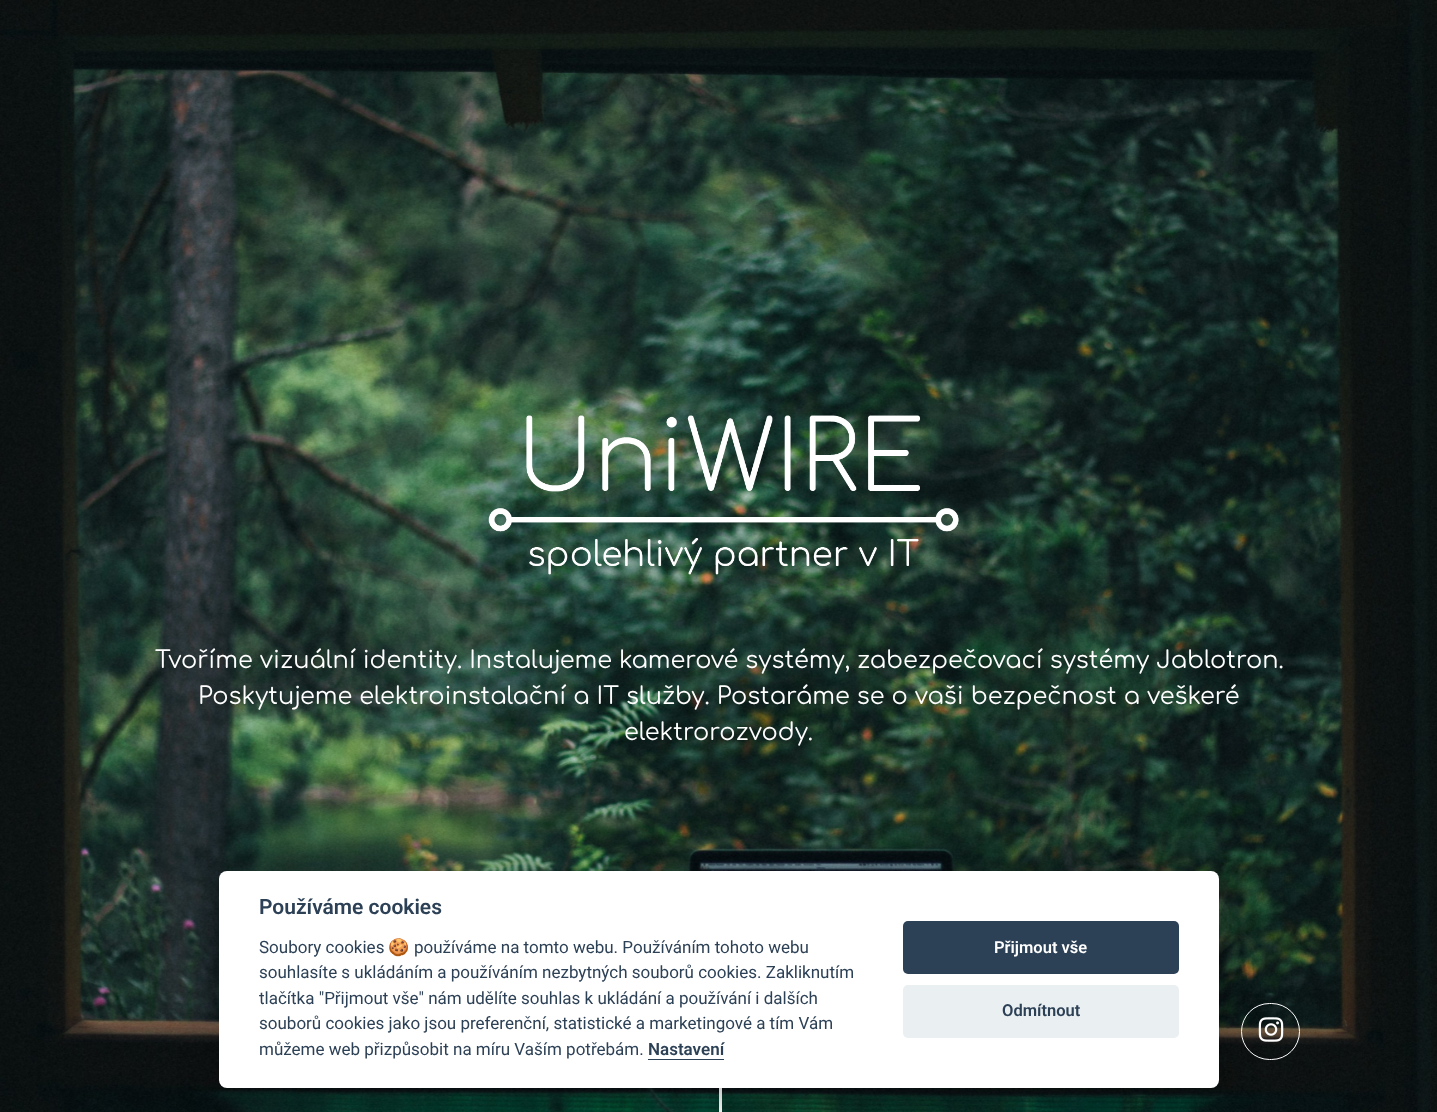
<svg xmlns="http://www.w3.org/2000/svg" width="1437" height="1112">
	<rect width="100%" height="100%" fill="#FFFFFF" />
	<image x="0" y="0" width="1437" height="1112" href="assets/img1.png" />
	<image x="488" y="415" width="471" height="160" href="assets/img2.png" />
	<g font-family="Comfortaa" font-size="24" fill="#FFFFFF">
		<text x="155" y="668">Tvoříme vizuální identity. Instalujeme kamerové systémy, zabezpečovací systémy Jablotron.</text>
		<text x="198" y="704">Poskytujeme elektroinstalační a IT služby. Postaráme se o vaši bezpečnost a veškeré</text>
		<text x="624" y="740">elektrorozvody.</text>
	</g>
	<rect x="1241.5" y="1003.5" width="58" height="56" rx="28" fill="none" stroke="#FFFFFF" />
	<image x="1258" y="1017" width="26" height="25" href="assets/img3.png" />
	<rect x="719" y="1088" width="3" height="24" fill="#FFFFFF" />
	<rect x="219" y="884" width="1000" height="216" rx="8" fill="#020203" fill-opacity="0.28" filter="blur(19px)" />
	<rect x="219" y="871" width="1000" height="217" rx="8" fill="#FFFFFF" />
	<text x="259" y="914" font-family="Roboto" font-size="21" font-weight="600" fill="#2D4156">Používáme cookies</text>
	<text x="259" y="953" font-family="Roboto" font-size="17" fill="#2D4156">Soubory cookies</text>
	<text x="388" y="953" font-family="Noto Color Emoji" font-size="17" fill="#2D4156">🍪</text>
	<g font-family="Roboto" font-size="17" fill="#2D4156">
		<text x="414" y="953">používáme na tomto webu. Používáním tohoto webu</text>
		<text x="259" y="978">souhlasíte s ukládáním a používáním nezbytných souborů cookies. Zakliknutím</text>
		<text x="259" y="1004">tlačítka "Přijmout vše" nám udělíte souhlas k ukládání a používání i dalších</text>
		<text x="259" y="1029">souborů cookies jako jsou preferenční, statistické a marketingové a tím Vám</text>
		<text x="259" y="1055">můžeme web přizpůsobit na míru Vaším potřebám.</text>
	</g>
	<text x="648" y="1055" font-family="Roboto" font-size="17" font-weight="600" fill="#2D4156">Nastavení</text>
	<rect x="648" y="1059" width="76" height="1" fill="#2D4156" />
	<rect x="903" y="921" width="276" height="53" rx="5" fill="#2D4156" />
	<text x="994" y="953" font-family="Roboto" font-size="16.5" font-weight="600" fill="#FFFFFF">Přijmout vše</text>
	<rect x="903" y="985" width="276" height="53" rx="5" fill="#EAEFF2" />
	<text x="1002" y="1016" font-family="Roboto" font-size="16.5" font-weight="600" fill="#2D4156">Odmítnout</text>
</svg>
